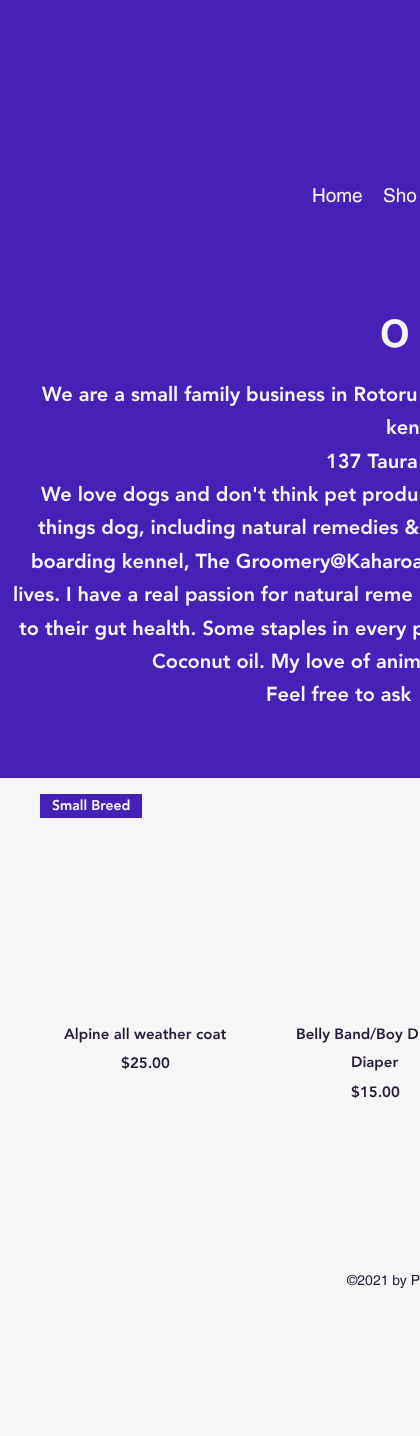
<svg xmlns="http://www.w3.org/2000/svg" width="420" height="1436">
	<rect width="100%" height="100%" fill="#F6F6F6" />
	<rect x="0" y="0" width="420" height="778" fill="#4720B7" />
	<g font-family="helvetica" font-size="19" fill="#F6F6F6">
		<text x="312" y="202">Home</text>
		<text x="383" y="202">Sho</text>
	</g>
	<text x="380" y="347" font-family="helvetica" font-size="38" font-weight="700" fill="#F6F6F6">O</text>
	<g font-family="'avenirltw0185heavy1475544'" font-size="20" font-weight="900" fill="#F6F6F6">
		<text x="42" y="401">We are a small family business in Rotoru</text>
		<text x="386" y="434">ken</text>
		<text x="326" y="468">137 Taura</text>
		<text x="41" y="501">We love dogs and don't think pet produ</text>
		<text x="38" y="534">things dog, including natural remedies &amp;</text>
		<text x="31" y="568">boarding kennel, The Groomery@Kaharoa</text>
		<text x="13" y="601">lives. I have a real passion for natural reme</text>
		<text x="19" y="635">to their gut health. Some staples in every p</text>
		<text x="152" y="668">Coconut oil. My love of anim</text>
		<text x="266" y="701">Feel free to ask</text>
	</g>
	<rect x="40" y="794" width="102" height="24" fill="#4720B7" />
	<text x="52" y="810" font-family="'avenirltw0185heavy1475544'" font-size="14" font-weight="900" fill="#F6F6F6">Small Breed</text>
	<g font-family="'avenirltw0185heavy1475544'" font-size="15" font-weight="900" fill="#281A39">
		<text x="64" y="1039">Alpine all weather coat</text>
		<text x="121" y="1068">$25.00</text>
		<text x="296" y="1039">Belly Band/Boy D</text>
		<text x="351" y="1067">Diaper</text>
		<text x="351" y="1097">$15.00</text>
	</g>
	<text x="347" y="1285" font-family="helvetica" font-size="14" fill="#281A39">©2021 by P</text>
</svg>
